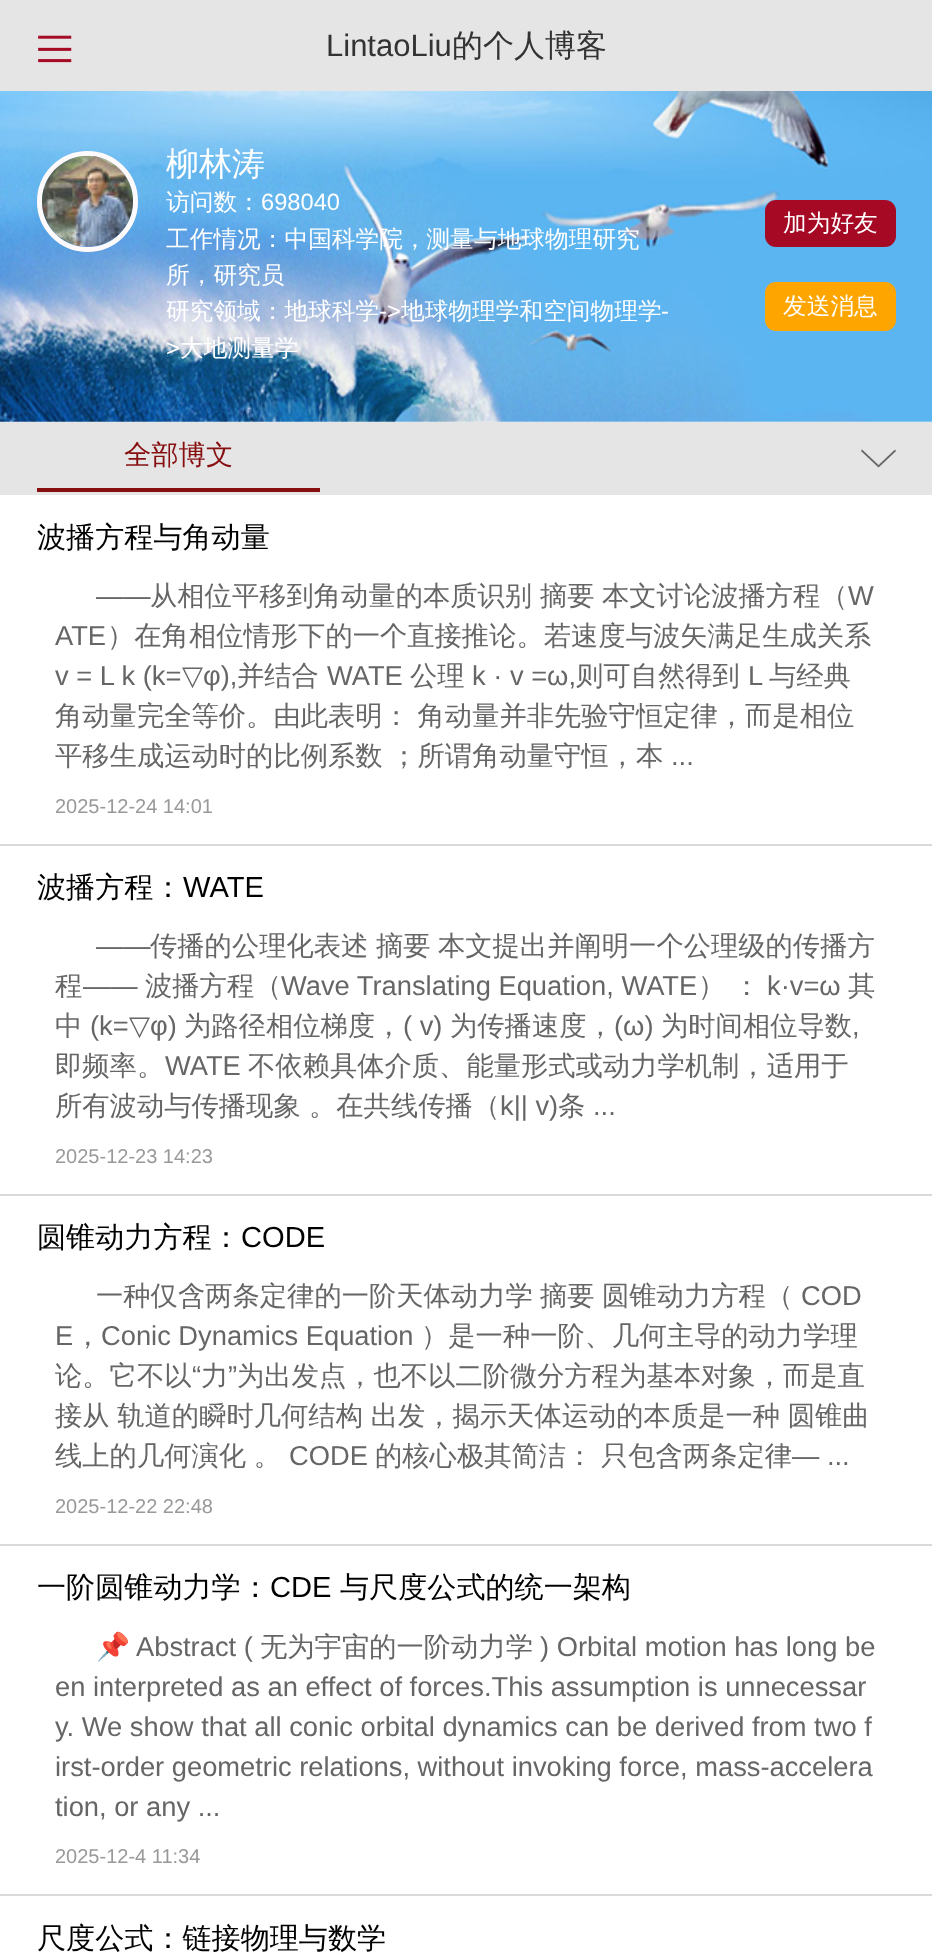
<svg xmlns="http://www.w3.org/2000/svg" width="932" height="1955">
	<defs>
		<clipPath id="clip1"><rect x="37" y="1573" width="859" height="34" /></clipPath>
	</defs>
	<rect width="100%" height="100%" fill="#FFFFFF" />
	<rect x="0" y="0" width="932" height="91" fill="#E5E5E5" />
	<image x="38" y="35" width="34" height="28" href="assets/img1.png" />
	<text x="326" y="56" font-family="Liberation Sans" font-size="31" fill="#333333">LintaoLiu</text>
	<text x="452" y="56" font-family="WenQuanYi Zen Hei" font-size="31" font-weight="500" fill="#333333">的个人博客</text>
	<image x="0" y="91" width="932" height="331" href="assets/img2.png" />
	<circle cx="87.5" cy="201.5" r="48" fill="none" stroke="#FEFAFB" stroke-width="5" />
	<image x="42" y="155" width="91" height="92" href="assets/img3.png" />
	<text x="166" y="175" font-family="WenQuanYi Zen Hei" font-size="33" font-weight="500" fill="#FFFFFF">柳林涛</text>
	<text x="166" y="210" font-family="WenQuanYi Zen Hei" font-size="23.7" font-weight="500" fill="#FFFFFF">访问数：</text>
	<text x="261" y="210" font-family="Liberation Sans" font-size="23.7" fill="#FFFFFF">698040</text>
	<g font-family="WenQuanYi Zen Hei" font-size="23.7" font-weight="500" fill="#FFFFFF">
		<text x="166" y="247">工作情况：中国科学院，测量与地球物理研究</text>
		<text x="166" y="283">所，研究员</text>
		<text x="166" y="319">研究领域：地球科学</text>
	</g>
	<text x="379" y="319" font-family="Liberation Sans" font-size="23.7" fill="#FFFFFF">-&gt;</text>
	<text x="401" y="319" font-family="WenQuanYi Zen Hei" font-size="23.7" font-weight="500" fill="#FFFFFF">地球物理学和空间物理学</text>
	<g font-family="Liberation Sans" font-size="23.7" fill="#FFFFFF">
		<text x="661" y="319">-</text>
		<text x="166" y="356">&gt;</text>
	</g>
	<text x="180" y="356" font-family="WenQuanYi Zen Hei" font-size="23.7" font-weight="500" fill="#FFFFFF">大地测量学</text>
	<rect x="765" y="200" width="131" height="47" rx="11" fill="#A60924" />
	<text x="783" y="231" font-family="WenQuanYi Zen Hei" font-size="23.7" font-weight="500" fill="#FFFFFF">加为好友</text>
	<rect x="765" y="282" width="131" height="49" rx="11" fill="#FFA500" />
	<text x="783" y="314" font-family="WenQuanYi Zen Hei" font-size="23.7" font-weight="500" fill="#FFFFFF">发送消息</text>
	<rect x="0" y="422" width="932" height="73" fill="#E5E5E5" />
	<rect x="37" y="488" width="283" height="4" fill="#860E0F" />
	<text x="124" y="464" font-family="WenQuanYi Zen Hei" font-size="27.3" font-weight="500" fill="#860E0F">全部博文</text>
	<image x="861" y="449" width="35" height="19" href="assets/img4.png" />
	<rect x="0" y="844" width="932" height="2" fill="#D9D9D9" />
	<text x="37" y="547" font-family="WenQuanYi Zen Hei" font-size="29.1" font-weight="500" fill="#000000">波播方程与角动量</text>
	<text x="96" y="605" font-family="Liberation Sans" font-size="27.3" fill="#666666">——</text>
	<g font-family="WenQuanYi Zen Hei" font-size="27.3" font-weight="500" fill="#666666">
		<text x="150" y="605">从相位平移到角动量的本质识别</text>
		<text x="540" y="605">摘要</text>
		<text x="602" y="605">本文讨论波播方程（</text>
	</g>
	<g font-family="Liberation Sans" font-size="27.3" fill="#666666">
		<text x="848" y="605">W</text>
		<text x="55" y="645">ATE</text>
	</g>
	<text x="107" y="645" font-family="WenQuanYi Zen Hei" font-size="27.3" font-weight="500" fill="#666666">）在角相位情形下的一个直接推论。若速度与波矢满足生成关系</text>
	<text x="55" y="685" font-family="Liberation Sans" font-size="27.3" fill="#666666">v = L k (k=</text>
	<text x="182" y="685" font-family="DejaVu Sans" font-size="27.3" fill="#666666">▽</text>
	<text x="203" y="685" font-family="Liberation Sans" font-size="27.3" fill="#666666">φ),</text>
	<text x="237" y="685" font-family="WenQuanYi Zen Hei" font-size="27.3" font-weight="500" fill="#666666">并结合</text>
	<text x="327" y="685" font-family="Liberation Sans" font-size="27.3" fill="#666666">WATE</text>
	<text x="410" y="685" font-family="WenQuanYi Zen Hei" font-size="27.3" font-weight="500" fill="#666666">公理</text>
	<text x="472" y="685" font-family="Liberation Sans" font-size="27.3" fill="#666666">k · v =ω,</text>
	<text x="576" y="685" font-family="WenQuanYi Zen Hei" font-size="27.3" font-weight="500" fill="#666666">则可自然得到</text>
	<text x="748" y="685" font-family="Liberation Sans" font-size="27.3" fill="#666666">L</text>
	<g font-family="WenQuanYi Zen Hei" font-size="27.3" font-weight="500" fill="#666666">
		<text x="769" y="685">与经典</text>
		<text x="55" y="725" word-spacing="-0.5">角动量完全等价。由此表明： 角动量并非先验守恒定律，而是相位</text>
		<text x="55" y="765" word-spacing="-0.5">平移生成运动时的比例系数 ；所谓角动量守恒，本</text>
	</g>
	<text x="671" y="765" font-family="Liberation Sans" font-size="27.3" fill="#666666">...</text>
	<text x="55" y="813" font-family="Liberation Sans" font-size="20" fill="#999999">2025-12-24 14:01</text>
	<rect x="0" y="1194" width="932" height="2" fill="#D9D9D9" />
	<text x="37" y="897" font-family="WenQuanYi Zen Hei" font-size="29.1" font-weight="500" fill="#000000">波播方程：</text>
	<text x="183" y="897" font-family="Liberation Sans" font-size="29.1" fill="#000000">WATE</text>
	<text x="96" y="955" font-family="Liberation Sans" font-size="27.3" fill="#666666">——</text>
	<g font-family="WenQuanYi Zen Hei" font-size="27.3" font-weight="500" fill="#666666">
		<text x="150" y="955">传播的公理化表述</text>
		<text x="376" y="955">摘要</text>
		<text x="438" y="955">本文提出并阐明一个公理级的传播方</text>
		<text x="55" y="995">程</text>
	</g>
	<text x="83" y="995" font-family="Liberation Sans" font-size="27.3" fill="#666666">——</text>
	<text x="145" y="995" font-family="WenQuanYi Zen Hei" font-size="27.3" font-weight="500" fill="#666666">波播方程（</text>
	<text x="281" y="995" font-family="Liberation Sans" font-size="27.3" fill="#666666">Wave Translating Equation, WATE</text>
	<g font-family="WenQuanYi Zen Hei" font-size="27.3" font-weight="500" fill="#666666">
		<text x="698" y="995">）</text>
		<text x="733" y="995">：</text>
	</g>
	<text x="767" y="995" font-family="Liberation Sans" font-size="27.3" fill="#666666">k·v=ω</text>
	<g font-family="WenQuanYi Zen Hei" font-size="27.3" font-weight="500" fill="#666666">
		<text x="848" y="995">其</text>
		<text x="55" y="1035">中</text>
	</g>
	<text x="90" y="1035" font-family="Liberation Sans" font-size="27.3" fill="#666666">(k=</text>
	<text x="129" y="1035" font-family="DejaVu Sans" font-size="27.3" fill="#666666">▽</text>
	<text x="150" y="1035" font-family="Liberation Sans" font-size="27.3" fill="#666666">φ)</text>
	<text x="184" y="1035" font-family="WenQuanYi Zen Hei" font-size="27.3" font-weight="500" fill="#666666">为路径相位梯度，</text>
	<text x="403" y="1035" font-family="Liberation Sans" font-size="27.3" fill="#666666">( v)</text>
	<text x="450" y="1035" font-family="WenQuanYi Zen Hei" font-size="27.3" font-weight="500" fill="#666666">为传播速度，</text>
	<text x="614" y="1035" font-family="Liberation Sans" font-size="27.3" fill="#666666">(ω)</text>
	<text x="661" y="1035" font-family="WenQuanYi Zen Hei" font-size="27.3" font-weight="500" fill="#666666">为时间相位导数</text>
	<text x="852" y="1035" font-family="Liberation Sans" font-size="27.3" fill="#666666">,</text>
	<text x="55" y="1075" font-family="WenQuanYi Zen Hei" font-size="27.3" font-weight="500" fill="#666666">即频率。</text>
	<text x="165" y="1075" font-family="Liberation Sans" font-size="27.3" fill="#666666">WATE</text>
	<g font-family="WenQuanYi Zen Hei" font-size="27.3" font-weight="500" fill="#666666">
		<text x="248" y="1075">不依赖具体介质、能量形式或动力学机制，适用于</text>
		<text x="55" y="1115">所有波动与传播现象</text>
		<text x="309" y="1115">。在共线传播（</text>
	</g>
	<text x="500" y="1115" font-family="Liberation Sans" font-size="27.3" fill="#666666">k|| v)</text>
	<text x="558" y="1115" font-family="WenQuanYi Zen Hei" font-size="27.3" font-weight="500" fill="#666666">条</text>
	<text x="593" y="1115" font-family="Liberation Sans" font-size="27.3" fill="#666666">...</text>
	<text x="55" y="1163" font-family="Liberation Sans" font-size="20" fill="#999999">2025-12-23 14:23</text>
	<rect x="0" y="1544" width="932" height="2" fill="#D9D9D9" />
	<text x="37" y="1247" font-family="WenQuanYi Zen Hei" font-size="29.1" font-weight="500" fill="#000000">圆锥动力方程：</text>
	<text x="241" y="1247" font-family="Liberation Sans" font-size="29.1" fill="#000000">CODE</text>
	<g font-family="WenQuanYi Zen Hei" font-size="27.3" font-weight="500" fill="#666666">
		<text x="96" y="1305">一种仅含两条定律的一阶天体动力学</text>
		<text x="540" y="1305">摘要</text>
		<text x="602" y="1305">圆锥动力方程（</text>
	</g>
	<g font-family="Liberation Sans" font-size="27.3" fill="#666666">
		<text x="801" y="1305">COD</text>
		<text x="55" y="1345">E</text>
	</g>
	<text x="74" y="1345" font-family="WenQuanYi Zen Hei" font-size="27.3" font-weight="500" fill="#666666">，</text>
	<text x="101" y="1345" font-family="Liberation Sans" font-size="27.3" fill="#666666">Conic Dynamics Equation</text>
	<g font-family="WenQuanYi Zen Hei" font-size="27.3" font-weight="500" fill="#666666">
		<text x="421" y="1345">）是一种一阶、几何主导的动力学理</text>
		<text x="55" y="1385">论。它不以</text>
	</g>
	<text x="192" y="1385" font-family="Liberation Sans" font-size="27.3" fill="#666666">“</text>
	<text x="201" y="1385" font-family="WenQuanYi Zen Hei" font-size="27.3" font-weight="500" fill="#666666">力</text>
	<text x="228" y="1385" font-family="Liberation Sans" font-size="27.3" fill="#666666">”</text>
	<g font-family="WenQuanYi Zen Hei" font-size="27.3" font-weight="500" fill="#666666">
		<text x="237" y="1385">为出发点，也不以二阶微分方程为基本对象，而是直</text>
		<text x="55" y="1425" word-spacing="-0.5">接从 轨道的瞬时几何结构 出发，揭示天体运动的本质是一种 圆锥曲</text>
		<text x="55" y="1465" word-spacing="-0.5">线上的几何演化 。</text>
	</g>
	<text x="289" y="1465" font-family="Liberation Sans" font-size="27.3" fill="#666666">CODE</text>
	<g font-family="WenQuanYi Zen Hei" font-size="27.3" font-weight="500" fill="#666666">
		<text x="375" y="1465">的核心极其简洁：</text>
		<text x="601" y="1465">只包含两条定律</text>
	</g>
	<text x="792" y="1465" font-family="Liberation Sans" font-size="27.3" fill="#666666">— ...</text>
	<text x="55" y="1513" font-family="Liberation Sans" font-size="20" fill="#999999">2025-12-22 22:48</text>
	<rect x="0" y="1894" width="932" height="2" fill="#D9D9D9" />
	<text x="37" y="1597" font-family="WenQuanYi Zen Hei" font-size="29.1" font-weight="500" fill="#000000">一阶圆锥动力学：</text>
	<text x="270" y="1597" font-family="Liberation Sans" font-size="29.1" fill="#000000">CDE</text>
	<g clip-path="url(#clip1)">
		<text x="340" y="1597" font-family="WenQuanYi Zen Hei" font-size="29.1" font-weight="500" fill="#000000">与尺度公式的统一架构</text>
	</g>
	<text x="96" y="1656" font-family="Noto Color Emoji" font-size="27.3" fill="#666666">📌</text>
	<text x="136" y="1656" font-family="Liberation Sans" font-size="27.3" fill="#666666">Abstract (</text>
	<text x="260" y="1656" font-family="WenQuanYi Zen Hei" font-size="27.3" font-weight="500" fill="#666666">无为宇宙的一阶动力学</text>
	<g font-family="Liberation Sans" font-size="27.3" fill="#666666">
		<text x="540" y="1656">) Orbital motion has long be</text>
		<text x="55" y="1696">en interpreted as an effect of forces.This assumption is unnecessar</text>
		<text x="55" y="1736">y. We show that all conic orbital dynamics can be derived from two f</text>
		<text x="55" y="1776">irst-order geometric relations, without invoking force, mass-accelera</text>
		<text x="55" y="1816">tion, or any ...</text>
	</g>
	<text x="55" y="1863" font-family="Liberation Sans" font-size="20" fill="#999999">2025-12-4 11:34</text>
	<text x="37" y="1948" font-family="WenQuanYi Zen Hei" font-size="29.1" font-weight="500" fill="#000000">尺度公式：链接物理与数学</text>
</svg>
